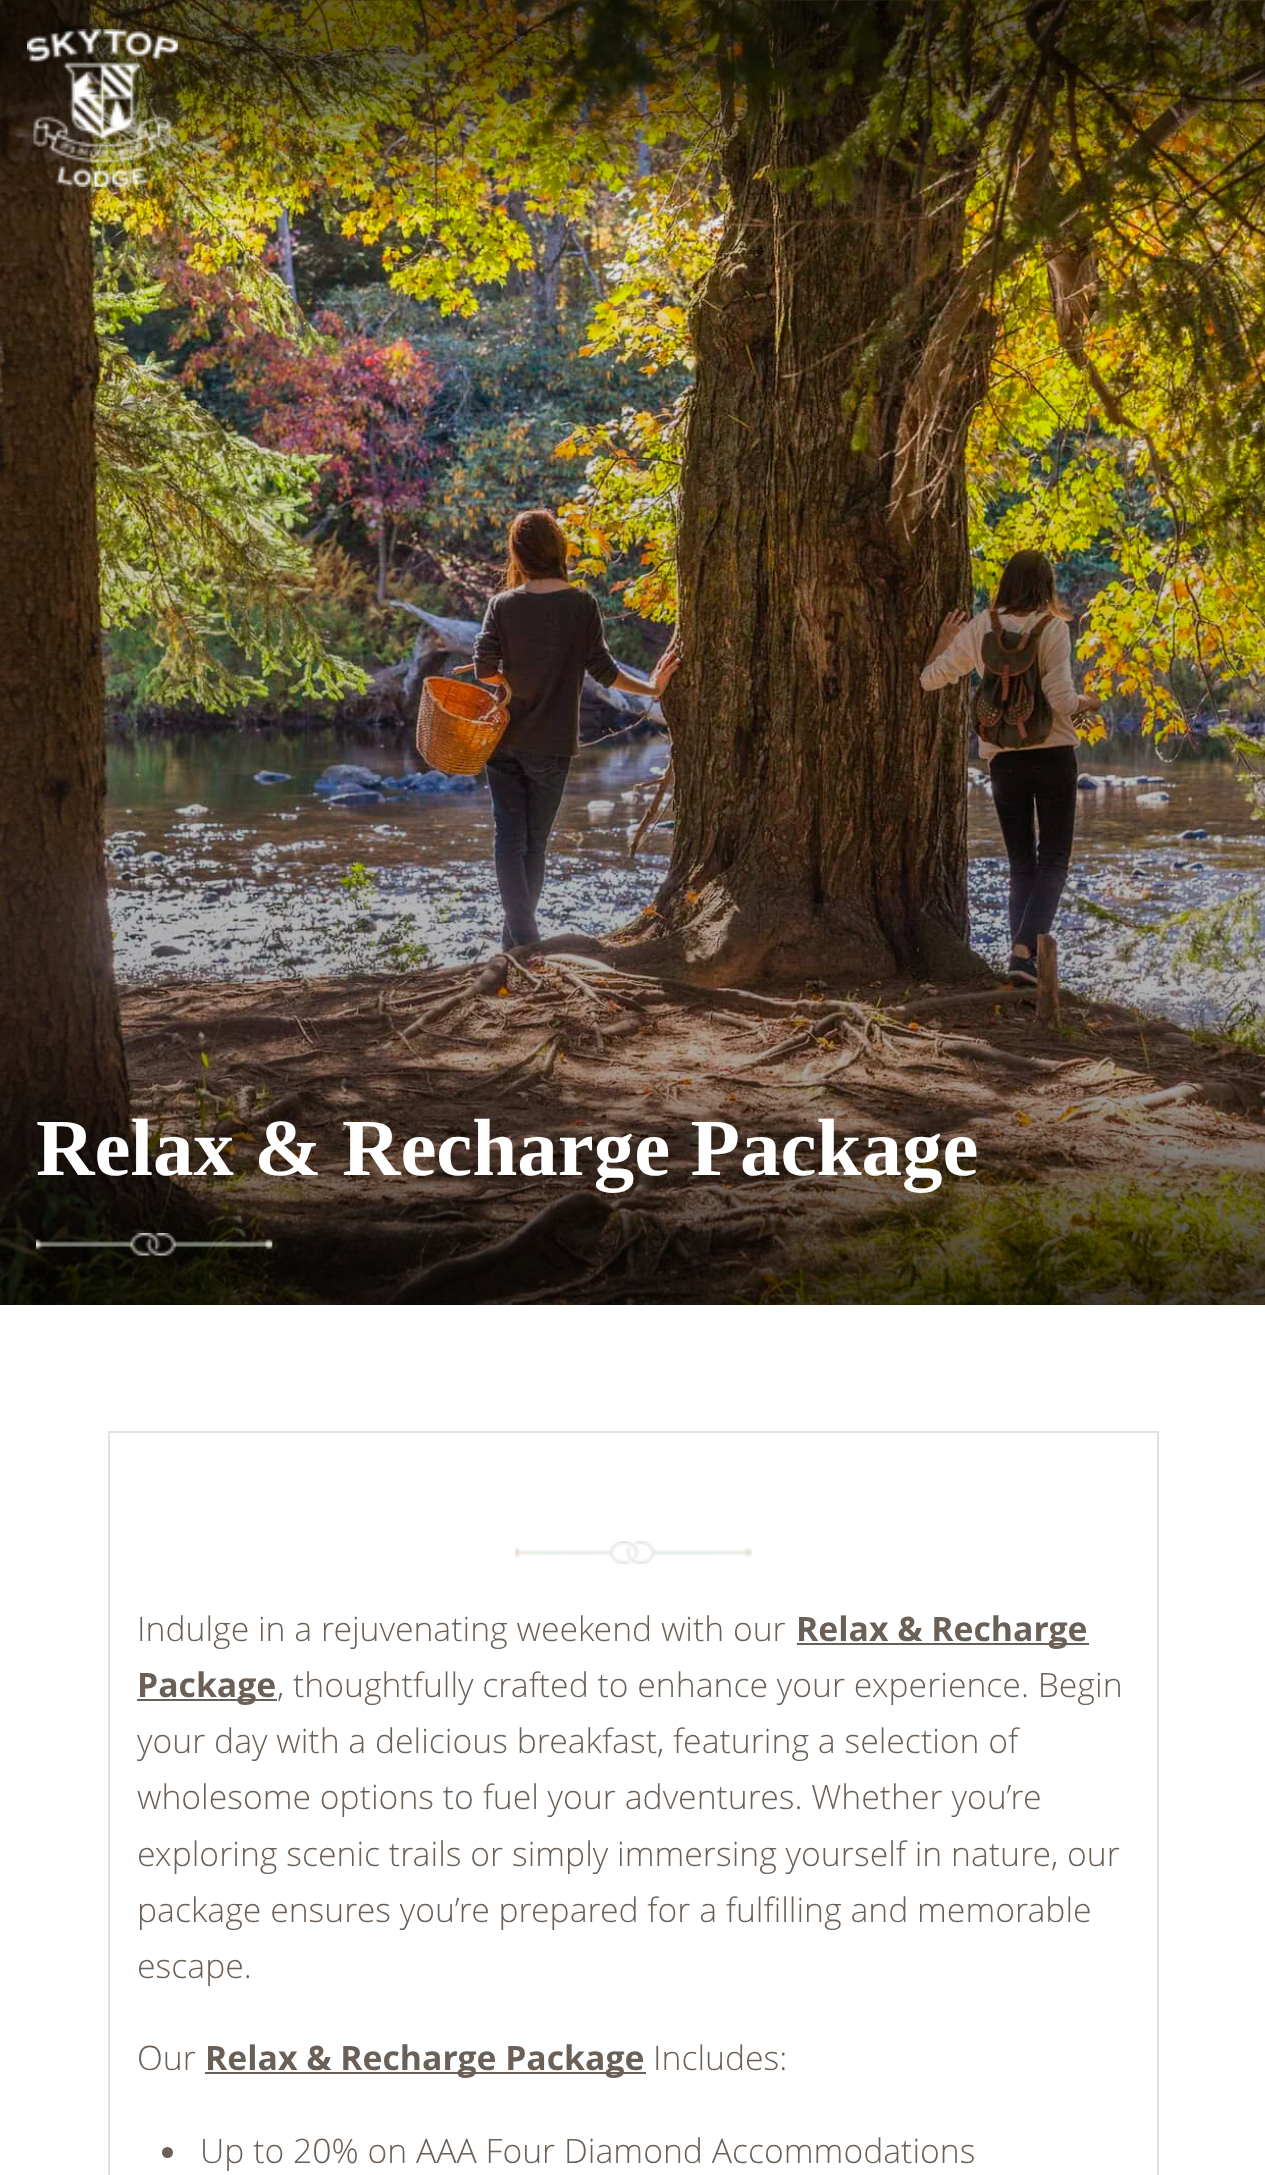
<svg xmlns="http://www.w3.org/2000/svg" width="1265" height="2175">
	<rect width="100%" height="100%" fill="#FFFFFF" />
	<image x="0" y="0" width="1265" height="1305" href="assets/img2.png" />
	<image x="27" y="29" width="151" height="158" href="assets/img1.png" />
	<text x="36" y="1175" font-family="Liberation Serif" font-size="81" font-weight="700" fill="#FFFFFF">Relax &amp; Recharge Package</text>
	<image x="36" y="1233" width="237" height="23" href="assets/img3.png" />
	<rect x="109" y="1432" width="1049" height="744" fill="none" stroke="#DEE2E6" stroke-width="2" />
	<image x="515" y="1541" width="237" height="23" href="assets/img4.png" />
	<text x="137" y="1641" font-family="Open Sans" font-size="33.75" font-weight="300" fill="#6A6057">Indulge in a rejuvenating weekend with our</text>
	<rect x="797" y="1643" width="292" height="2" fill="#6A6057" />
	<text x="796" y="1641" font-family="Open Sans" font-size="33.75" font-weight="700" fill="#6A6057">Relax &amp; Recharge</text>
	<rect x="137" y="1699" width="140" height="2" fill="#6A6057" />
	<text x="137" y="1697" font-family="Open Sans" font-size="33.75" font-weight="700" fill="#6A6057">Package</text>
	<g font-family="Open Sans" font-size="33.75" font-weight="300" fill="#6A6057">
		<text x="277" y="1697">, thoughtfully crafted to enhance your experience. Begin</text>
		<text x="137" y="1753">your day with a delicious breakfast, featuring a selection of</text>
		<text x="137" y="1809">wholesome options to fuel your adventures. Whether you’re</text>
		<text x="137" y="1866">exploring scenic trails or simply immersing yourself in nature, our</text>
		<text x="137" y="1922">package ensures you’re prepared for a fulfilling and memorable</text>
		<text x="137" y="1978">escape.</text>
		<text x="137" y="2070">Our</text>
	</g>
	<rect x="205" y="2072" width="441" height="2" fill="#6A6057" />
	<text x="205" y="2070" font-family="Open Sans" font-size="33.75" font-weight="700" fill="#6A6057">Relax &amp; Recharge Package</text>
	<text x="653" y="2070" font-family="Open Sans" font-size="33.75" font-weight="300" fill="#6A6057">Includes:</text>
	<circle cx="167.5" cy="2152.5" r="5.5" fill="#6A6057" />
	<text x="200" y="2163" font-family="Open Sans" font-size="33.75" font-weight="300" fill="#6A6057">Up to 20% on AAA Four Diamond Accommodations</text>
</svg>
